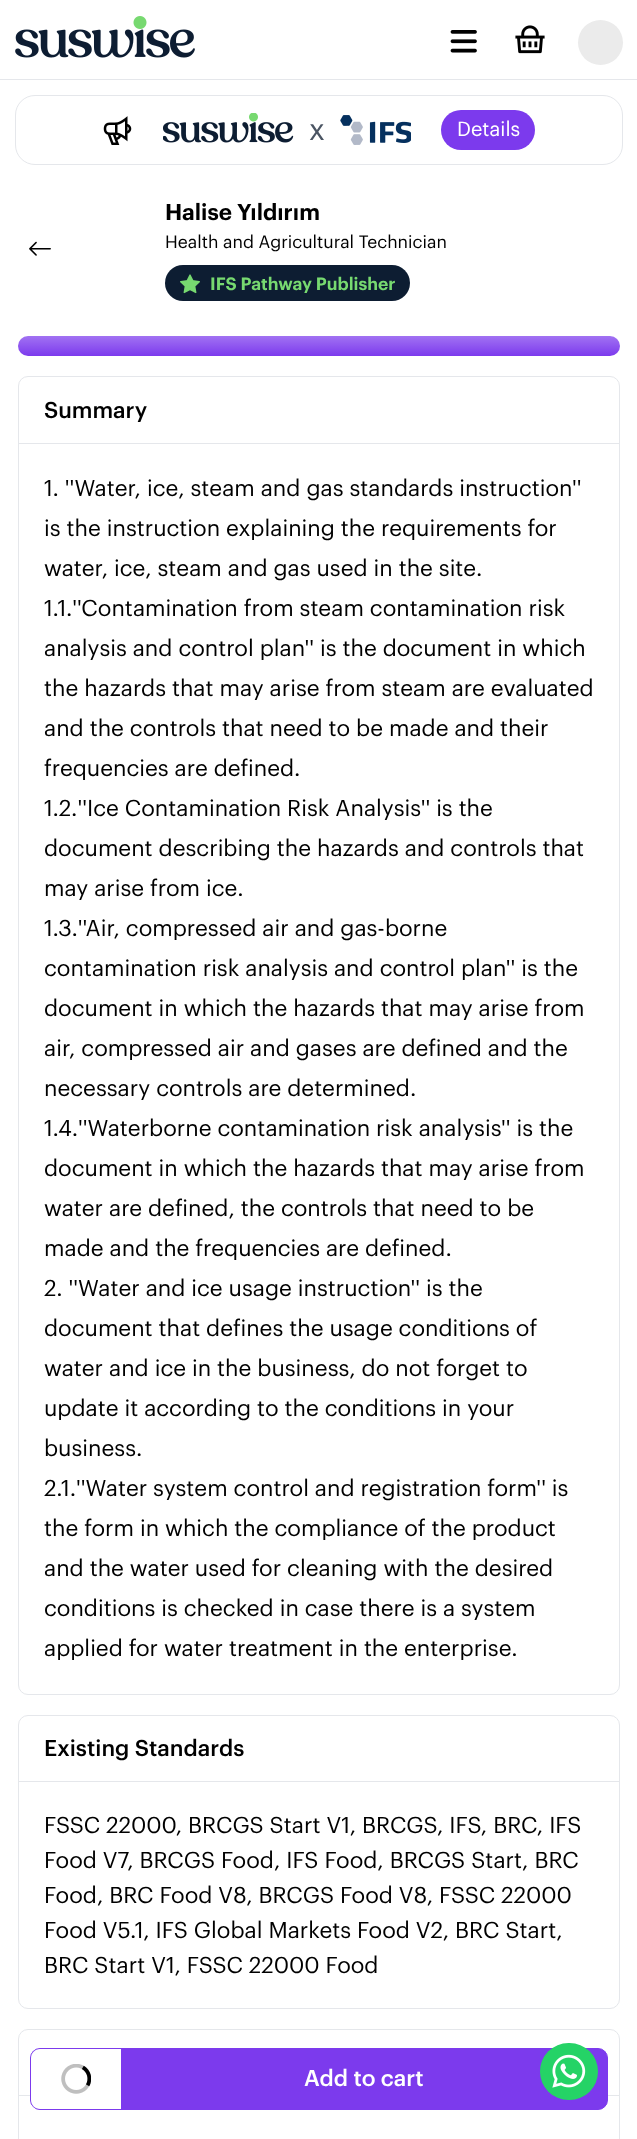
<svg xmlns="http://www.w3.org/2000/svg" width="637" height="2139">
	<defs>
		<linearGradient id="g1" gradientUnits="userSpaceOnUse" x1="319" y1="286" x2="319" y2="356"><stop offset="0" stop-color="#FFFFFF" /><stop offset="1" stop-color="#7C3AED" /></linearGradient>
	</defs>
	<rect width="100%" height="100%" fill="#FFFFFF" />
	<rect x="0" y="79" width="637" height="1" fill="#E5E7EB" />
	<image x="15" y="16" width="180" height="42" href="assets/img1.png" />
	<image x="450" y="30" width="27" height="23" href="assets/img2.png" />
	<image x="515" y="25" width="30" height="29" href="assets/img3.png" />
	<circle cx="600.5" cy="42.5" r="22.5" fill="#EBEBEB" />
	<rect x="15.5" y="95.5" width="607" height="69" rx="19.5" fill="none" stroke="#E5E7EB" />
	<image x="103" y="116" width="29" height="29" href="assets/img4.png" />
	<image x="163" y="113" width="131" height="30" href="assets/img5.png" />
	<text x="309" y="140" font-family="Graphik" font-size="30" fill="#4B5563">x</text>
	<image x="340" y="115" width="71" height="30" href="assets/img6.png" />
	<rect x="441" y="110" width="94" height="40" rx="20" fill="#7C3AED" />
	<text x="457" y="136" font-family="Graphik" font-size="20" fill="#FFFFFF">Details</text>
	<image x="29" y="241" width="22" height="15" href="assets/img7.png" />
	<text x="165" y="220" font-family="Graphik" font-size="22.5" font-weight="600" fill="#000000">Halise Yıldırım</text>
	<text x="165" y="248" font-family="Graphik" font-size="17.5" fill="#000000">Health and Agricultural Technician</text>
	<rect x="165" y="265" width="245" height="36" rx="18" fill="#0D1D32" />
	<image x="180" y="274" width="20" height="20" href="assets/img8.png" />
	<text x="210" y="290" font-family="Graphik" font-size="17.5" font-weight="600" fill="#77D970">IFS Pathway Publisher</text>
	<rect x="18" y="336" width="602" height="20" rx="10" fill="url(#g1)" />
	<rect x="18.5" y="376.5" width="601" height="1318" rx="9.5" fill="none" stroke="#E5E7EB" />
	<rect x="19" y="443" width="600" height="1" fill="#E5E7EB" />
	<text x="44" y="418" font-family="Graphik" font-size="22.5" font-weight="500" fill="#000000">Summary</text>
	<g font-family="Graphik" font-size="22.5" fill="#000000">
		<text x="44" y="496">1. ''Water, ice, steam and gas standards instruction''</text>
		<text x="44" y="536">is the instruction explaining the requirements for</text>
		<text x="44" y="576">water, ice, steam and gas used in the site.</text>
		<text x="44" y="616">1.1.''Contamination from steam contamination risk</text>
		<text x="44" y="656">analysis and control plan'' is the document in which</text>
		<text x="44" y="696">the hazards that may arise from steam are evaluated</text>
		<text x="44" y="736">and the controls that need to be made and their</text>
		<text x="44" y="776">frequencies are defined.</text>
		<text x="44" y="816">1.2.''Ice Contamination Risk Analysis'' is the</text>
		<text x="44" y="856">document describing the hazards and controls that</text>
		<text x="44" y="896">may arise from ice.</text>
		<text x="44" y="936">1.3.''Air, compressed air and gas-borne</text>
		<text x="44" y="976">contamination risk analysis and control plan'' is the</text>
		<text x="44" y="1016">document in which the hazards that may arise from</text>
		<text x="44" y="1056">air, compressed air and gases are defined and the</text>
		<text x="44" y="1096">necessary controls are determined.</text>
		<text x="44" y="1136">1.4.''Waterborne contamination risk analysis'' is the</text>
		<text x="44" y="1176">document in which the hazards that may arise from</text>
		<text x="44" y="1216">water are defined, the controls that need to be</text>
		<text x="44" y="1256">made and the frequencies are defined.</text>
		<text x="44" y="1296">2. ''Water and ice usage instruction'' is the</text>
		<text x="44" y="1336">document that defines the usage conditions of</text>
		<text x="44" y="1376">water and ice in the business, do not forget to</text>
		<text x="44" y="1416">update it according to the conditions in your</text>
		<text x="44" y="1456">business.</text>
		<text x="44" y="1496">2.1.''Water system control and registration form'' is</text>
		<text x="44" y="1536">the form in which the compliance of the product</text>
		<text x="44" y="1576">and the water used for cleaning with the desired</text>
		<text x="44" y="1616">conditions is checked in case there is a system</text>
		<text x="44" y="1656">applied for water treatment in the enterprise.</text>
	</g>
	<rect x="18.5" y="1715.5" width="601" height="293" rx="9.5" fill="none" stroke="#E5E7EB" />
	<rect x="19" y="1781" width="600" height="1" fill="#E5E7EB" />
	<text x="44" y="1756" font-family="Graphik" font-size="22.5" font-weight="500" fill="#000000">Existing Standards</text>
	<g font-family="Graphik" font-size="22.5" fill="#000000">
		<text x="44" y="1833">FSSC 22000, BRCGS Start V1, BRCGS, IFS, BRC, IFS</text>
		<text x="44" y="1868">Food V7, BRCGS Food, IFS Food, BRCGS Start, BRC</text>
		<text x="44" y="1903">Food, BRC Food V8, BRCGS Food V8, FSSC 22000</text>
		<text x="44" y="1938">Food V5.1, IFS Global Markets Food V2, BRC Start,</text>
		<text x="44" y="1973">BRC Start V1, FSSC 22000 Food</text>
	</g>
	<rect x="18.5" y="2029.5" width="601" height="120" rx="9.5" fill="none" stroke="#E5E7EB" />
	<rect x="19" y="2095" width="600" height="1" fill="#E5E7EB" />
	<rect x="30.5" y="2048.5" width="577" height="61" rx="9.5" fill="#7C3AED" stroke="#7C3AED" />
	<path d="M40 2049H121V2109H40C35 2109 31 2105 31 2100V2058C31 2053 35 2049 40 2049Z" fill="#FFFFFF" />
	<image x="61" y="2064" width="30" height="30" href="assets/img9.png" />
	<text x="304" y="2086" font-family="Graphik" font-size="22.5" font-weight="500" fill="#FFFFFF">Add to cart</text>
	<rect x="540" y="2043" width="58" height="57" rx="28.5" fill="#25D366" />
	<image x="552" y="2054" width="34" height="34" href="assets/img10.png" />
</svg>
